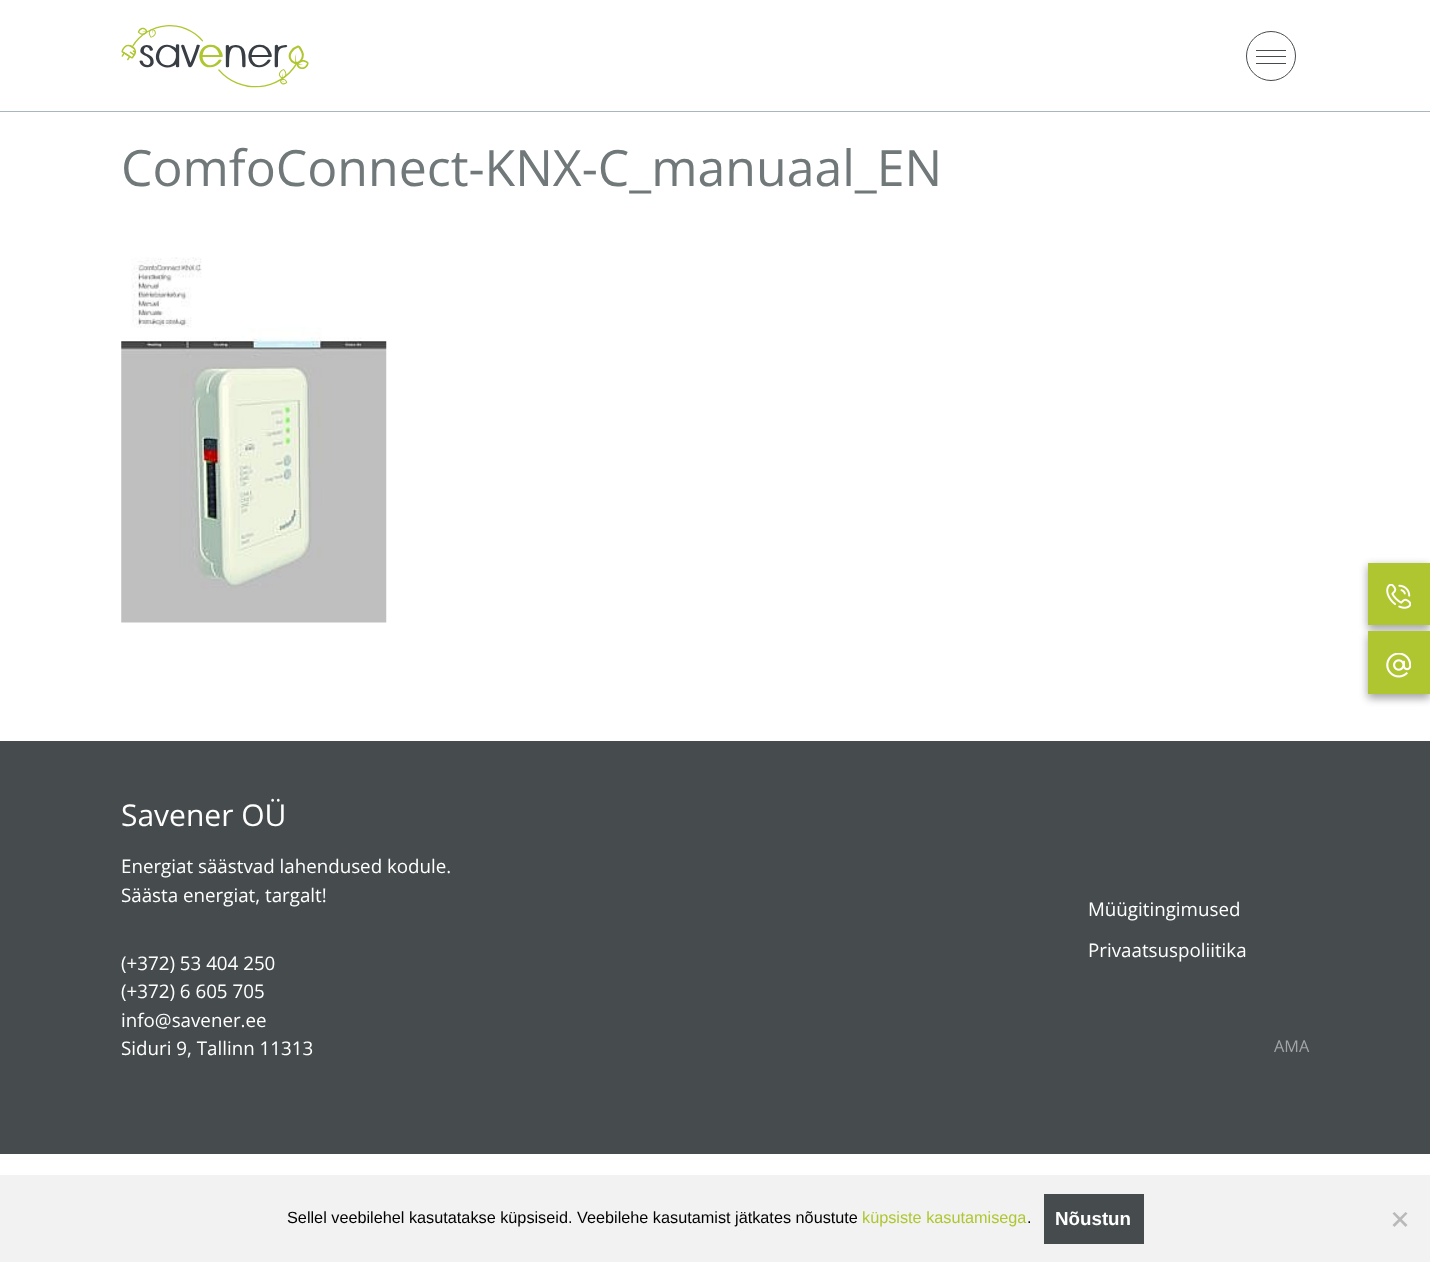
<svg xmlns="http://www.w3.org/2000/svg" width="1430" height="1262">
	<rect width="100%" height="100%" fill="#FFFFFF" />
	<rect x="0" y="111" width="1430" height="1" fill="#A7B7BC" />
	<image x="121" y="25" width="188" height="63" href="assets/img1.png" />
	<circle cx="1271" cy="56" r="24.5" fill="none" stroke="#464B4D" />
	<rect x="1256" y="50" width="30" height="1" fill="#464B4D" />
	<rect x="1256" y="56" width="30" height="1" fill="#464B4D" />
	<rect x="1256" y="63" width="30" height="1" fill="#464B4D" />
	<text x="121" y="186" font-family="Open Sans" font-size="50" fill="#70787A">ComfoConnect-KNX-C_manuaal_EN</text>
	<image x="121" y="257" width="266" height="366" href="assets/img2.png" />
	<rect x="0" y="741" width="1430" height="413" fill="#464B4D" />
	<rect x="1368" y="566" width="62" height="63" fill="#000000" fill-opacity="0.23" filter="blur(4px)" />
	<rect x="1368" y="566" width="62" height="63" fill="#000000" fill-opacity="0.16" filter="blur(4px)" />
	<rect x="1368" y="563" width="62" height="62" fill="#B0C631" />
	<image x="1386" y="584" width="25" height="25" href="assets/img3.png" />
	<rect x="1368" y="635" width="62" height="63" fill="#000000" fill-opacity="0.23" filter="blur(4px)" />
	<rect x="1368" y="635" width="62" height="63" fill="#000000" fill-opacity="0.16" filter="blur(4px)" />
	<rect x="1368" y="631" width="62" height="63" fill="#B0C631" />
	<image x="1386" y="653" width="25" height="25" href="assets/img4.png" />
	<text x="121" y="826" font-family="Open Sans" font-size="30" fill="#FFFFFF">Savener OÜ</text>
	<g font-family="Open Sans" font-size="18.75" fill="#FFFFFF">
		<text x="121" y="873">Energiat säästvad lahendused kodule.</text>
		<text x="121" y="902">Säästa energiat, targalt!</text>
		<text x="121" y="970">(+372) 53 404 250</text>
		<text x="121" y="998">(+372) 6 605 705</text>
		<text x="121" y="1027">info@savener.ee</text>
		<text x="121" y="1055">Siduri 9, Tallinn 11313</text>
		<text x="1088" y="916">Müügitingimused</text>
		<text x="1088" y="957">Privaatsuspoliitika</text>
	</g>
	<text x="1274" y="1052" font-family="Open Sans" font-size="16.25" fill="#A3A5A6">AMA</text>
	<rect x="0" y="1175" width="1430" height="87" fill="#F2F2F2" />
	<text x="287" y="1223" font-family="Liberation Sans" font-size="16.25" fill="#000000">Sellel veebilehel kasutatakse küpsiseid. Veebilehe kasutamist jätkates nõustute</text>
	<text x="862" y="1223" font-family="Liberation Sans" font-size="16.25" fill="#B0C631">küpsiste kasutamisega</text>
	<text x="1027" y="1223" font-family="Liberation Sans" font-size="16.25" fill="#000000">.</text>
	<rect x="1044" y="1194" width="100" height="50" fill="#464B4D" />
	<text x="1055" y="1225" font-family="Liberation Sans" font-size="18.75" font-weight="700" fill="#FFFFFF">Nõustun</text>
	<path d="M1405.5 1212L1407.5 1213.5L1394.5 1227L1392.5 1225Z" fill="#B9B9B9" />
	<path d="M1392.5 1213.5L1394.5 1212L1407.5 1225L1405.5 1227Z" fill="#B9B9B9" />
</svg>
